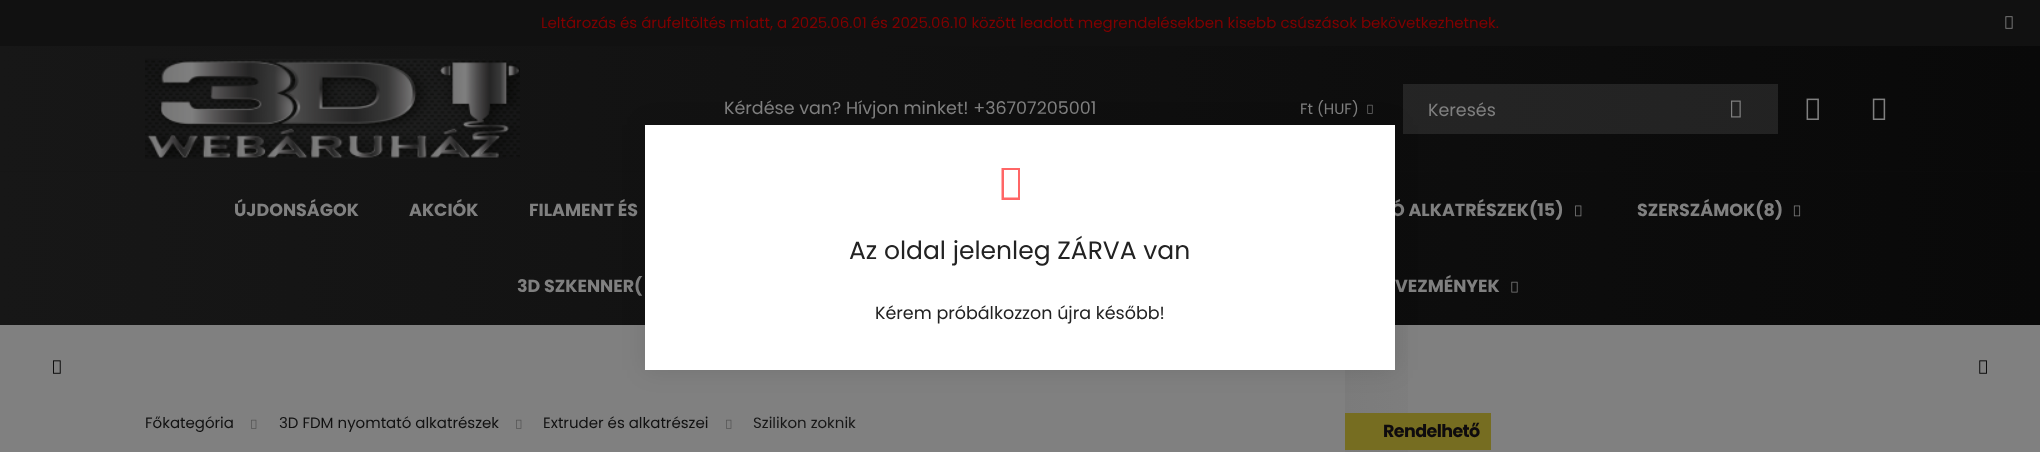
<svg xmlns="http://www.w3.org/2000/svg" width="2040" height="452">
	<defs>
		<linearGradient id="g1" gradientUnits="userSpaceOnUse" x1="0" y1="109" x2="2040" y2="109"><stop offset="0" stop-color="#171717" /><stop offset="1" stop-color="#090909" /></linearGradient>
		<linearGradient id="g2" gradientUnits="userSpaceOnUse" x1="0" y1="109" x2="2040" y2="109"><stop offset="0" stop-color="#2C2C2C" /><stop offset="1" stop-color="#212121" /></linearGradient>
		<linearGradient id="g3" gradientUnits="userSpaceOnUse" x1="0" y1="249" x2="2040" y2="249"><stop offset="0" stop-color="#171717" /><stop offset="1" stop-color="#090909" /></linearGradient>
		<linearGradient id="g4" gradientUnits="userSpaceOnUse" x1="0" y1="249" x2="2040" y2="249"><stop offset="0" stop-color="#161616" /><stop offset="1" stop-color="#0A0A0A" /></linearGradient>
		<linearGradient id="g5" gradientUnits="userSpaceOnUse" x1="1345" y1="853" x2="1895" y2="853"><stop offset="0" stop-color="#7B7B7B" /><stop offset="0.23" stop-color="#808080" /><stop offset="1" stop-color="#808080" /></linearGradient>
	</defs>
	<rect width="100%" height="100%" fill="#808080" />
	<rect x="0" y="0" width="2040" height="46" fill="#111111" />
	<text x="541" y="28" font-family="Poppins" font-size="15" fill="#800000">Leltározás és árufeltöltés miatt, a 2025.06.01 és 2025.06.10 között leadott megrendelésekben kisebb csúszások bekövetkezhetnek.</text>
	<image x="2005" y="16" width="8" height="13" href="assets/img1.png" />
	<rect x="0" y="46" width="2040" height="125" fill="url(#g1)" />
	<rect x="1403" y="84" width="375" height="50" fill="url(#g2)" />
	<image x="145" y="58" width="375" height="101" href="assets/img2.png" />
	<text x="724" y="114" font-family="Poppins" font-size="17.5" fill="#808080">Kérdése van? Hívjon minket! +36707205001</text>
	<text x="1300" y="114" font-family="Poppins" font-size="15" fill="#808080">Ft (HUF)</text>
	<image x="1367" y="104" width="6" height="10" href="assets/img3.png" />
	<text x="1428" y="116" font-family="Poppins" font-size="17.5" fill="#808080">Keresés</text>
	<image x="1731" y="100" width="10" height="18" href="assets/img4.png" />
	<image x="1806" y="98" width="13" height="22" href="assets/img5.png" />
	<image x="1872" y="98" width="14" height="22" href="assets/img6.png" />
	<rect x="0" y="172" width="2040" height="153" fill="url(#g3)" />
	<rect x="0" y="171" width="2040" height="1" fill="url(#g4)" />
	<g font-family="Poppins" font-size="17.5" font-weight="700" fill="#808080">
		<text x="234" y="216">ÚJDONSÁGOK</text>
		<text x="409" y="216">AKCIÓK</text>
		<text x="529" y="216">FILAMENT ÉS</text>
		<text x="1391" y="216">Ó ALKATRÉSZEK(15)</text>
	</g>
	<image x="1575" y="205" width="7" height="12" href="assets/img7.png" />
	<text x="1637" y="216" font-family="Poppins" font-size="17.5" font-weight="700" fill="#808080">SZERSZÁMOK(8)</text>
	<image x="1793" y="205" width="8" height="12" href="assets/img8.png" />
	<g font-family="Poppins" font-size="17.5" font-weight="700" fill="#808080">
		<text x="517" y="292">3D SZKENNER(</text>
		<text x="1395" y="292">VEZMÉNYEK</text>
	</g>
	<image x="1511" y="281" width="7" height="12" href="assets/img9.png" />
	<image x="53" y="360" width="8" height="14" href="assets/img10.png" />
	<image x="1979" y="360" width="8" height="14" href="assets/img11.png" />
	<text x="145" y="428" font-family="Poppins" font-size="15" fill="#111111">Főkategória</text>
	<image x="251" y="419" width="6" height="10" href="assets/img12.png" />
	<text x="279" y="428" font-family="Poppins" font-size="15" fill="#111111">3D FDM nyomtató alkatrészek</text>
	<image x="516" y="419" width="6" height="10" href="assets/img12.png" />
	<text x="543" y="428" font-family="Poppins" font-size="15" fill="#111111">Extruder és alkatrészei</text>
	<image x="726" y="419" width="6" height="10" href="assets/img12.png" />
	<text x="753" y="428" font-family="Poppins" font-size="15" fill="#171717">Szilikon zoknik</text>
	<rect x="1345" y="325" width="63" height="127" fill="url(#g5)" />
	<rect x="1345" y="413" width="146" height="37" fill="#766D21" />
	<text x="1383" y="437" font-family="Poppins" font-size="17.5" font-weight="700" letter-spacing="-0.6" fill="#0E0B0E">Rendelhető</text>
	<rect x="645" y="125" width="750" height="245" fill="#000000" fill-opacity="0.1" filter="blur(12.5px)" />
	<rect x="645" y="125" width="750" height="245" fill="#FFFFFF" />
	<path d="M1001.5 200V168H1020V200ZM1004 197.5H1018V170H1004Z" fill="#FF6666" />
	<text x="849" y="259" font-family="Poppins" font-size="25" fill="#222222">Az oldal jelenleg ZÁRVA van</text>
	<text x="875" y="319" font-family="Poppins" font-size="17.5" fill="#222222">Kérem próbálkozzon újra később!</text>
</svg>
